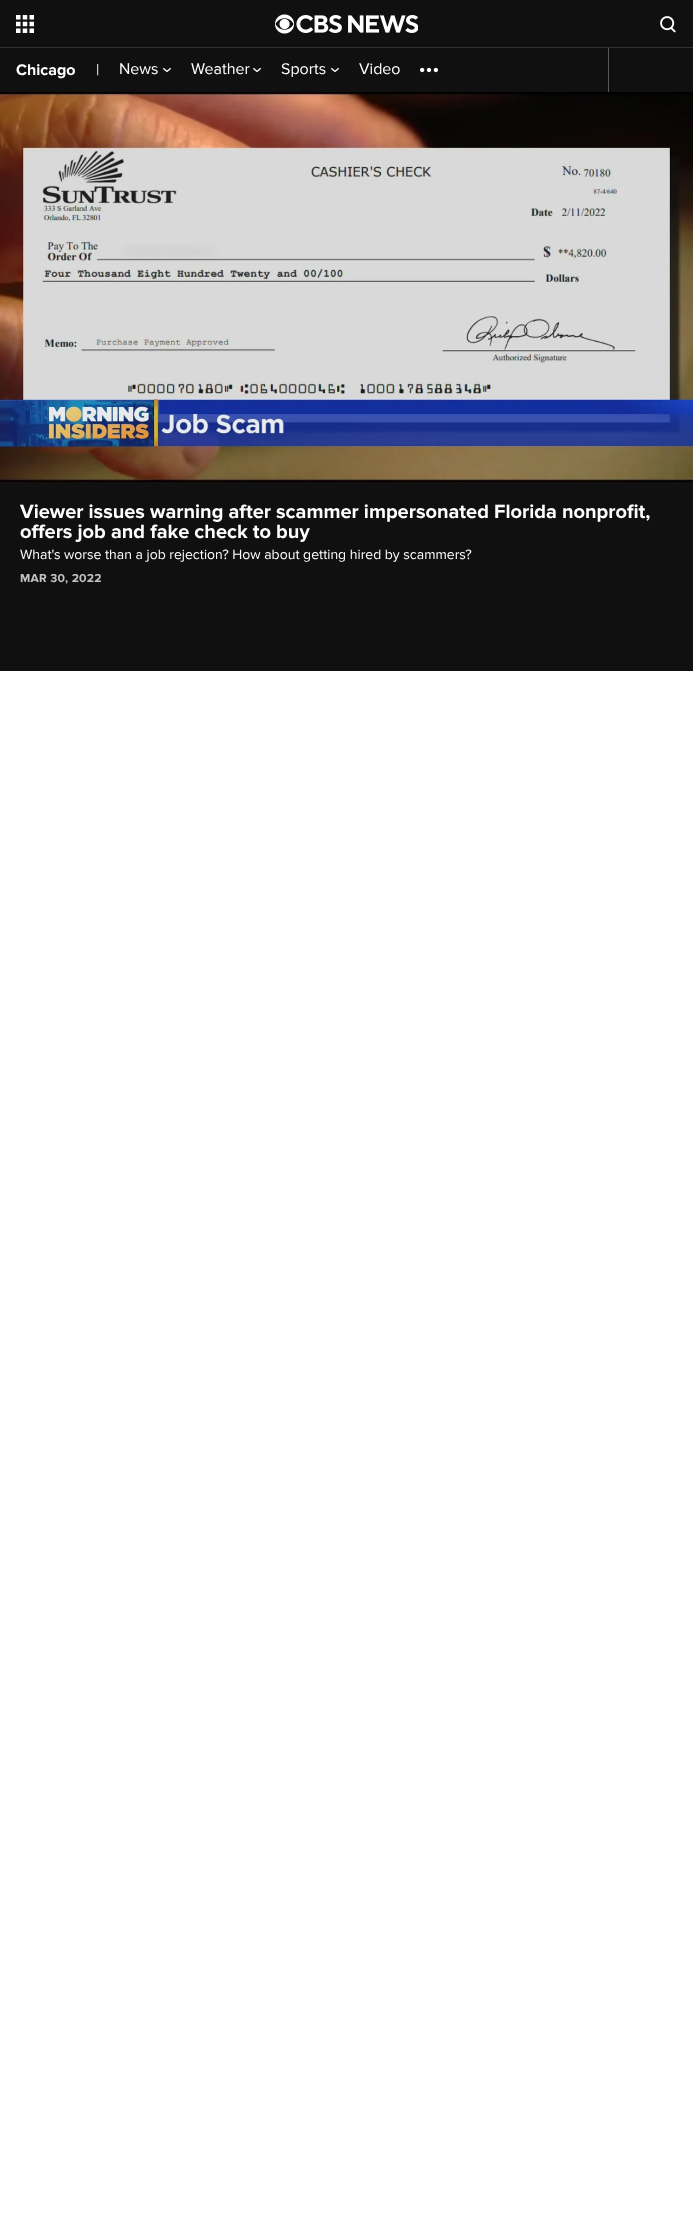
<svg xmlns="http://www.w3.org/2000/svg" width="693" height="2217">
	<rect width="100%" height="100%" fill="#FFFFFF" />
	<rect x="0" y="0" width="693" height="47" fill="#101010" />
	<rect x="0" y="47" width="693" height="1" fill="#323232" />
	<image x="16" y="15" width="18" height="18" href="assets/img1.png" />
	<image x="275" y="14" width="143" height="20" href="assets/img2.png" />
	<image x="660" y="16" width="16" height="17" href="assets/img3.png" />
	<rect x="0" y="48" width="693" height="44" fill="#101010" />
	<text x="16" y="75" font-family="Proxima Nova" font-size="16" font-weight="700" fill="#FFFFFF">Chicago</text>
	<g font-family="Proxima Nova" font-size="16" fill="#FFFFFF">
		<text x="96" y="75">|</text>
		<text x="119" y="74">News</text>
	</g>
	<image x="163" y="68" width="8" height="5" href="assets/img4.png" />
	<text x="191" y="74" font-family="Proxima Nova" font-size="16" fill="#FFFFFF">Weather</text>
	<image x="253" y="68" width="8" height="5" href="assets/img4.png" />
	<text x="281" y="74" font-family="Proxima Nova" font-size="16" fill="#FFFFFF">Sports</text>
	<image x="331" y="68" width="8" height="5" href="assets/img4.png" />
	<text x="359" y="74" font-family="Proxima Nova" font-size="16" fill="#FFFFFF">Video</text>
	<image x="420" y="67" width="18" height="6" href="assets/img5.png" />
	<rect x="608" y="48" width="1" height="44" fill="#585858" />
	<image x="0" y="92" width="693" height="390" href="assets/img6.png" />
	<rect x="0" y="482" width="693" height="189" fill="#101010" />
	<g font-family="Proxima Nova" font-size="20" font-weight="700" fill="#FFFFFF">
		<text x="20" y="518">Viewer issues warning after scammer impersonated Florida nonprofit,</text>
		<text x="20" y="538">offers job and fake check to buy</text>
	</g>
	<text x="20" y="559" font-family="Proxima Nova" font-size="14" fill="#FFFFFF">What's worse than a job rejection? How about getting hired by scammers?</text>
	<text x="20" y="582" font-family="Proxima Nova" font-size="12" font-weight="700" letter-spacing="0.25" fill="#C3C3C3">MAR 30, 2022</text>
</svg>
